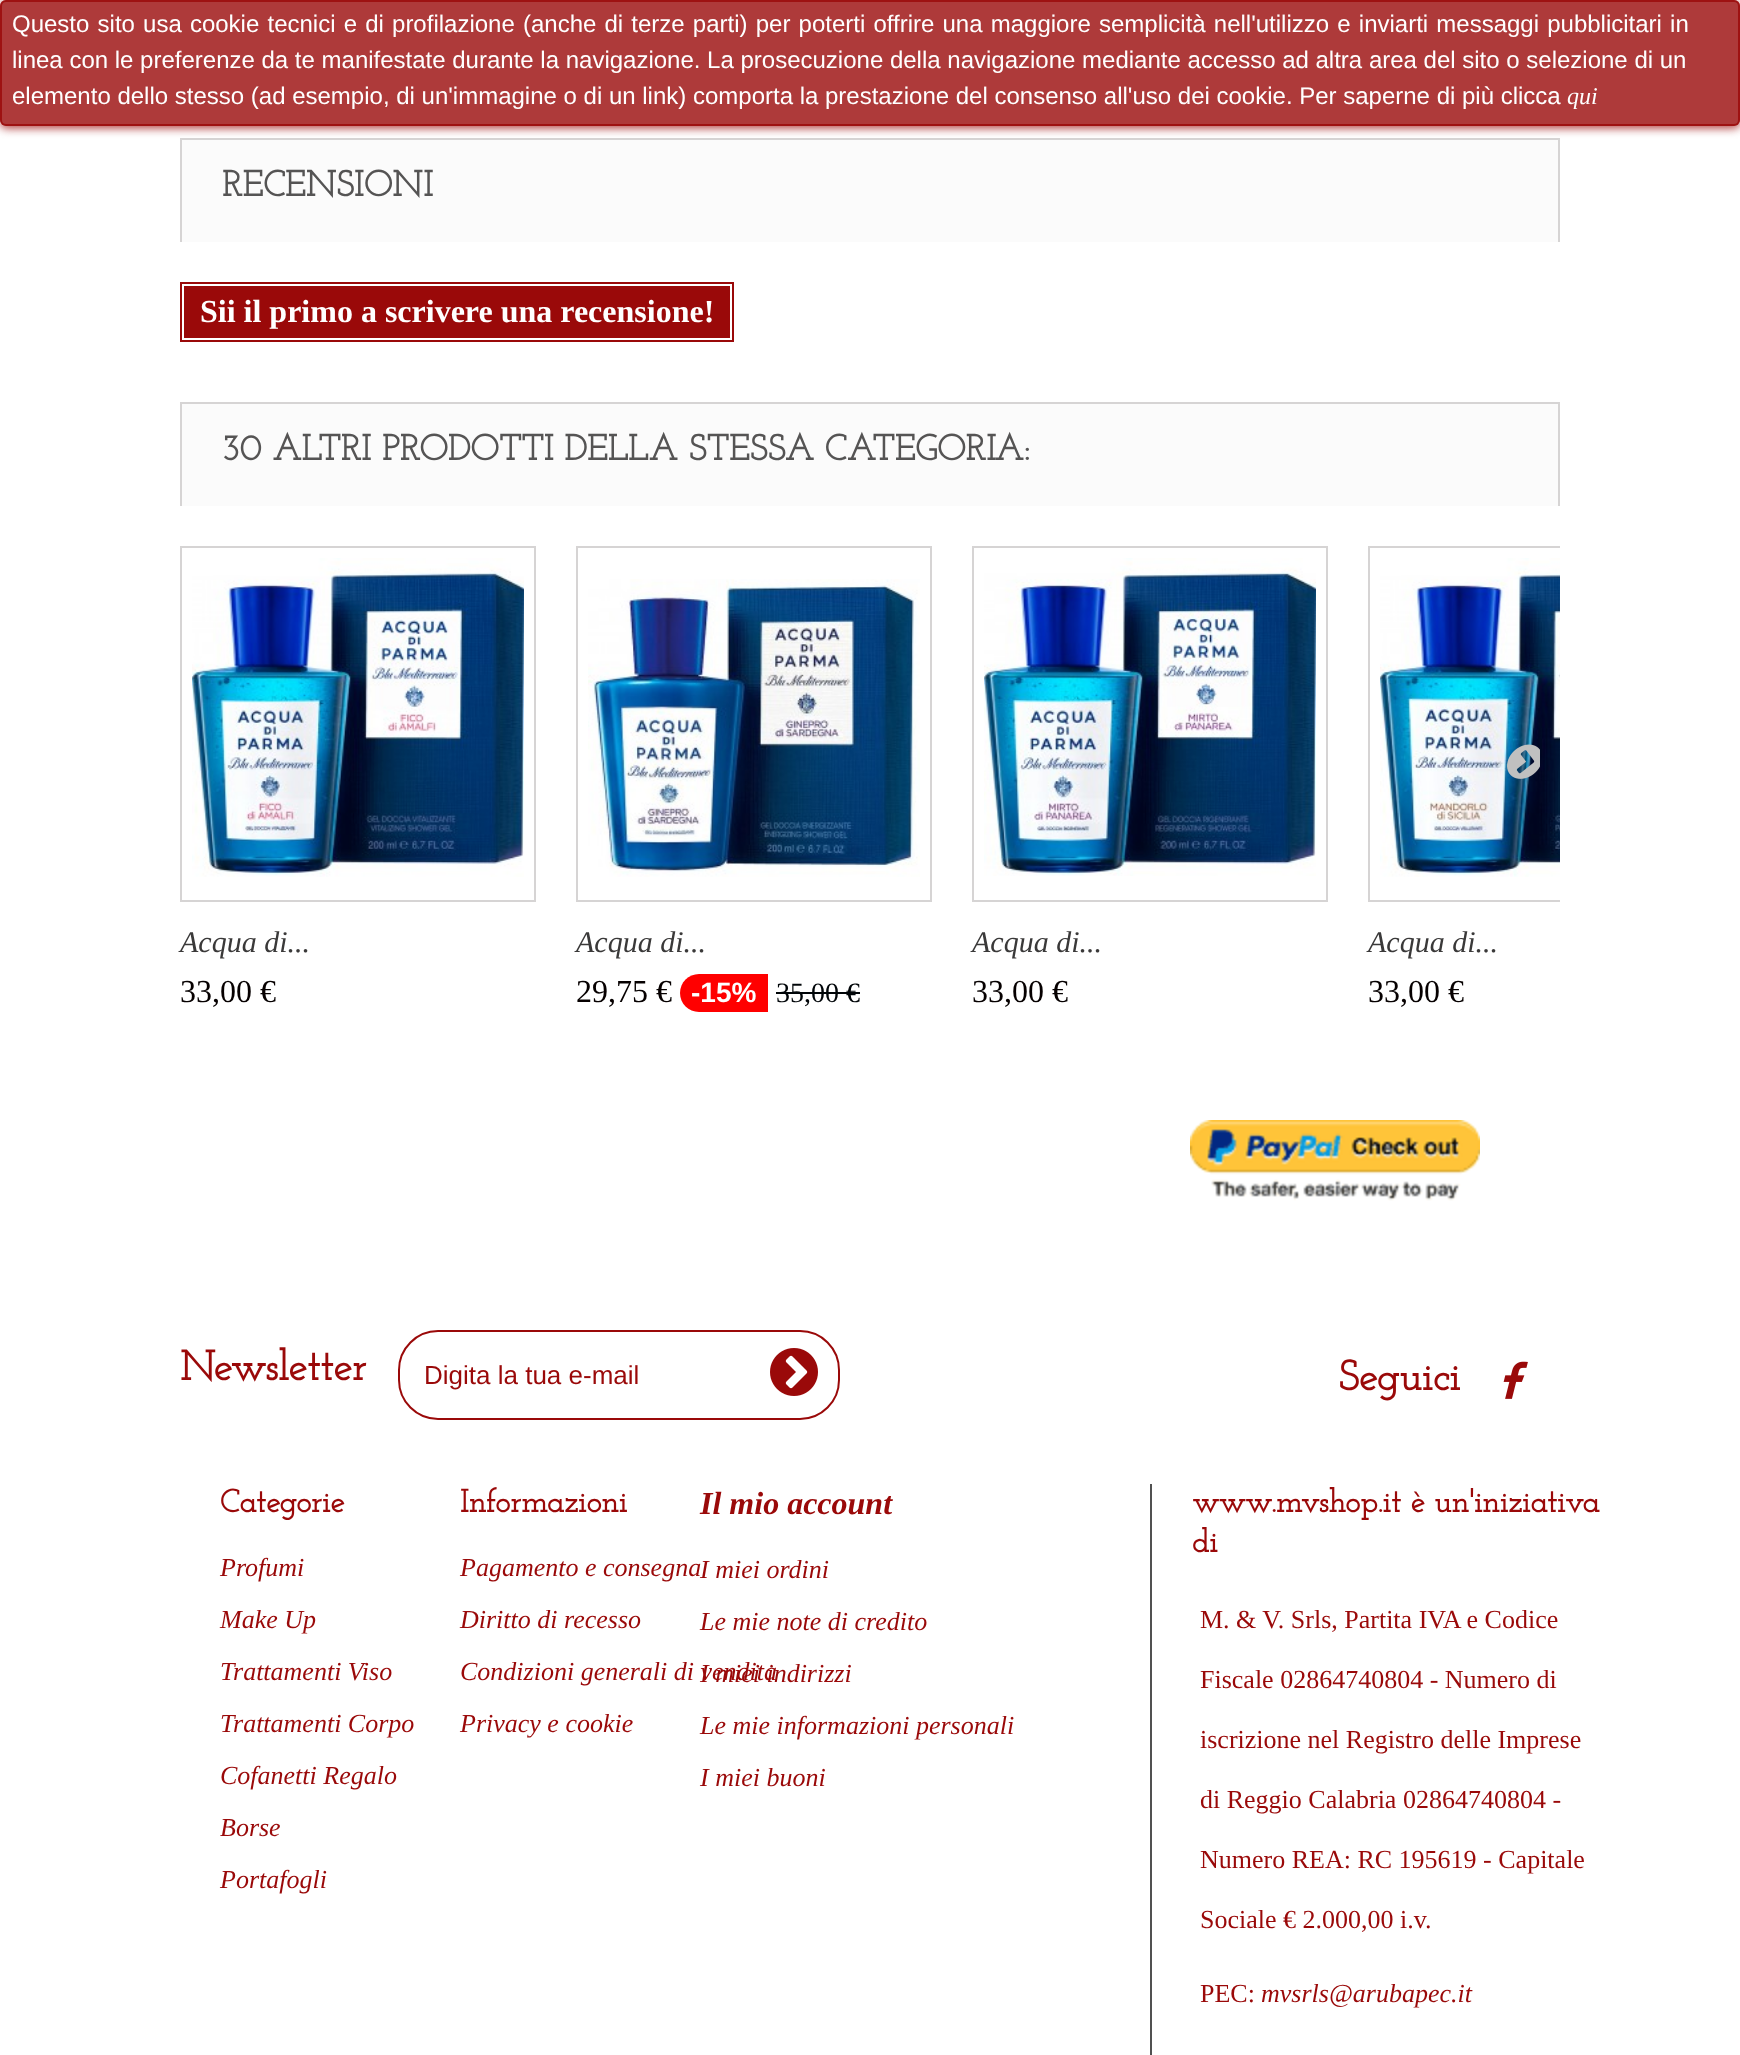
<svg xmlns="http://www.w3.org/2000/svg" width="1740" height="2055">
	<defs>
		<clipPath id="clip1"><path d="M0 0H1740V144H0ZM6 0H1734C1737.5 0 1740 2.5 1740 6V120C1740 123.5 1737.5 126 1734 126H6C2.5 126 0 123.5 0 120V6C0 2.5 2.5 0 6 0Z" clip-rule="evenodd" /></clipPath>
		<clipPath id="clip2"><rect x="180" y="546" width="1380" height="534" /></clipPath>
	</defs>
	<rect width="100%" height="100%" fill="#FFFFFF" />
	<rect x="182" y="140" width="1376" height="102" fill="#FBFBFB" />
	<rect x="180" y="138" width="1380" height="2" fill="#D6D4D4" />
	<rect x="1558" y="138" width="2" height="104" fill="#D6D4D4" />
	<rect x="180" y="138" width="2" height="104" fill="#D6D4D4" />
	<g clip-path="url(#clip1)">
		<rect x="0" y="2" width="1740" height="126" rx="6" fill="#AE3A3A" filter="blur(5px)" />
	</g>
	<rect x="0" y="0" width="1740" height="126" rx="6" fill="#9A0909" fill-opacity="0.8" />
	<rect x="1" y="1" width="1738" height="124" rx="5" fill="none" stroke="#9A0909" stroke-opacity="0.8" stroke-width="2" />
	<g font-family="Liberation Sans" font-size="24" fill="#FFFFFF">
		<text x="12" y="32" word-spacing="1.5">Questo sito usa cookie tecnici e di profilazione (anche di terze parti) per poterti offrire una maggiore semplicità nell'utilizzo e inviarti messaggi pubblicitari in</text>
		<text x="12" y="68">linea con le preferenze da te manifestate durante la navigazione. La prosecuzione della navigazione mediante accesso ad altra area del sito o selezione di un</text>
		<text x="12" y="104">elemento dello stesso (ad esempio, di un'immagine o di un link) comporta la prestazione del consenso all'uso dei cookie. Per saperne di più clicca</text>
	</g>
	<text x="1567" y="104" font-family="Liberation Serif" font-size="24" font-style="italic" fill="#FFFFFF">qui</text>
	<text x="222" y="196" font-family="Josefin Slab" font-size="36" font-weight="700" fill="#555454">RECENSIONI</text>
	<rect x="180" y="282" width="554" height="60" fill="#9A0909" />
	<rect x="183" y="285" width="548" height="54" fill="none" stroke="#FFFFFF" stroke-width="2" />
	<text x="200" y="322" font-family="Liberation Serif" font-size="32" font-weight="700" fill="#FFFFFF">Sii il primo a scrivere una recensione!</text>
	<rect x="182" y="404" width="1376" height="102" fill="#FBFBFB" />
	<rect x="180" y="402" width="1380" height="2" fill="#D6D4D4" />
	<rect x="1558" y="402" width="2" height="104" fill="#D6D4D4" />
	<rect x="180" y="402" width="2" height="104" fill="#D6D4D4" />
	<text x="222" y="460" font-family="Josefin Slab" font-size="36" font-weight="700" fill="#555454">30 ALTRI PRODOTTI DELLA STESSA CATEGORIA:</text>
	<g clip-path="url(#clip2)">
		<rect x="1369" y="547" width="354" height="354" fill="none" stroke="#D6D4D4" stroke-width="2" />
	</g>
	<image x="1380" y="558" width="180" height="319" href="assets/img5.png" />
	<image x="1507" y="744" width="33" height="35" href="assets/img1.png" />
	<rect x="181" y="547" width="354" height="354" fill="none" stroke="#D6D4D4" stroke-width="2" />
	<image x="192" y="558" width="332" height="319" href="assets/img2.png" />
	<text x="180" y="952" font-family="Liberation Serif" font-size="30" font-style="italic" fill="#3A3939">Acqua di...</text>
	<text x="180" y="1002" font-family="Liberation Serif" font-size="32" fill="#060000">33,00 €</text>
	<rect x="577" y="547" width="354" height="354" fill="none" stroke="#D6D4D4" stroke-width="2" />
	<image x="588" y="579" width="332" height="298" href="assets/img3.png" />
	<text x="576" y="952" font-family="Liberation Serif" font-size="30" font-style="italic" fill="#3A3939">Acqua di...</text>
	<text x="576" y="1002" font-family="Liberation Serif" font-size="32" fill="#060000">29,75 €</text>
	<path d="M699 974H768V1012H699C688.5 1012 680 1003.5 680 993C680 982.5 688.5 974 699 974Z" fill="#FF0000" />
	<text x="691" y="1002" font-family="Liberation Sans" font-size="28" font-weight="700" fill="#FFFFFF">-15%</text>
	<text x="776" y="1002" font-family="Liberation Serif" font-size="28" fill="#000508">35,00 €</text>
	<rect x="776" y="992" width="84" height="2" fill="#000508" />
	<rect x="973" y="547" width="354" height="354" fill="none" stroke="#D6D4D4" stroke-width="2" />
	<image x="984" y="558" width="332" height="318" href="assets/img4.png" />
	<text x="972" y="952" font-family="Liberation Serif" font-size="30" font-style="italic" fill="#3A3939">Acqua di...</text>
	<text x="972" y="1002" font-family="Liberation Serif" font-size="32" fill="#060000">33,00 €</text>
	<text x="1368" y="952" font-family="Liberation Serif" font-size="30" font-style="italic" fill="#3A3939">Acqua di...</text>
	<text x="1368" y="1002" font-family="Liberation Serif" font-size="32" fill="#060000">33,00 €</text>
	<image x="1190" y="1120" width="290" height="81" href="assets/img6.png" />
	<text x="180" y="1380" font-family="Josefin Slab" font-size="42" font-weight="700" fill="#9A0909">Newsletter</text>
	<rect x="399" y="1331" width="440" height="88" rx="39" fill="none" stroke="#9A0909" stroke-width="2" />
	<text x="424" y="1384" font-family="Liberation Sans" font-size="26" fill="#9A0909">Digita la tua e-mail</text>
	<image x="770" y="1348" width="48" height="48" href="assets/img7.png" />
	<text x="1338" y="1390" font-family="Josefin Slab" font-size="42" font-weight="700" fill="#9A0909">Seguici</text>
	<image x="1503" y="1361" width="25" height="38" href="assets/img8.png" />
	<text x="220" y="1512" font-family="Josefin Slab" font-size="32" font-weight="700" fill="#9A0909">Categorie</text>
	<g font-family="Liberation Serif" font-size="26" font-style="italic" fill="#9A0909">
		<text x="220" y="1576">Profumi</text>
		<text x="220" y="1628">Make Up</text>
		<text x="220" y="1680">Trattamenti Viso</text>
		<text x="220" y="1732">Trattamenti Corpo</text>
		<text x="220" y="1784">Cofanetti Regalo</text>
		<text x="220" y="1836">Borse</text>
		<text x="220" y="1888">Portafogli</text>
	</g>
	<text x="460" y="1512" font-family="Josefin Slab" font-size="32" font-weight="700" fill="#9A0909">Informazioni</text>
	<g font-family="Liberation Serif" font-size="26" font-style="italic" fill="#9A0909">
		<text x="460" y="1576">Pagamento e consegna</text>
		<text x="460" y="1628">Diritto di recesso</text>
		<text x="460" y="1680">Condizioni generali di vendita</text>
		<text x="460" y="1732">Privacy e cookie</text>
	</g>
	<text x="700" y="1514" font-family="Liberation Serif" font-size="32" font-weight="700" font-style="italic" fill="#9A0909">Il mio account</text>
	<g font-family="Liberation Serif" font-size="26" font-style="italic" fill="#9A0909">
		<text x="700" y="1578">I miei ordini</text>
		<text x="700" y="1630">Le mie note di credito</text>
		<text x="700" y="1682">I miei indirizzi</text>
		<text x="700" y="1734">Le mie informazioni personali</text>
		<text x="700" y="1786">I miei buoni</text>
	</g>
	<rect x="1150" y="1484" width="2" height="571" fill="#515151" />
	<g font-family="Josefin Slab" font-size="32" font-weight="700" fill="#9A0909">
		<text x="1192" y="1512">www.mvshop.it è un'iniziativa</text>
		<text x="1192" y="1552">di</text>
	</g>
	<g font-family="Liberation Serif" font-size="26" fill="#9A0909">
		<text x="1200" y="1628">M. &amp; V. Srls, Partita IVA e Codice</text>
		<text x="1200" y="1688">Fiscale 02864740804 - Numero di</text>
		<text x="1200" y="1748">iscrizione nel Registro delle Imprese</text>
		<text x="1200" y="1808">di Reggio Calabria 02864740804 -</text>
		<text x="1200" y="1868">Numero REA: RC 195619 - Capitale</text>
		<text x="1200" y="1928">Sociale € 2.000,00 i.v.</text>
		<text x="1200" y="2002">PEC:</text>
	</g>
	<text x="1261" y="2002" font-family="Liberation Serif" font-size="26" font-style="italic" fill="#9A0909">mvsrls@arubapec.it</text>
</svg>
